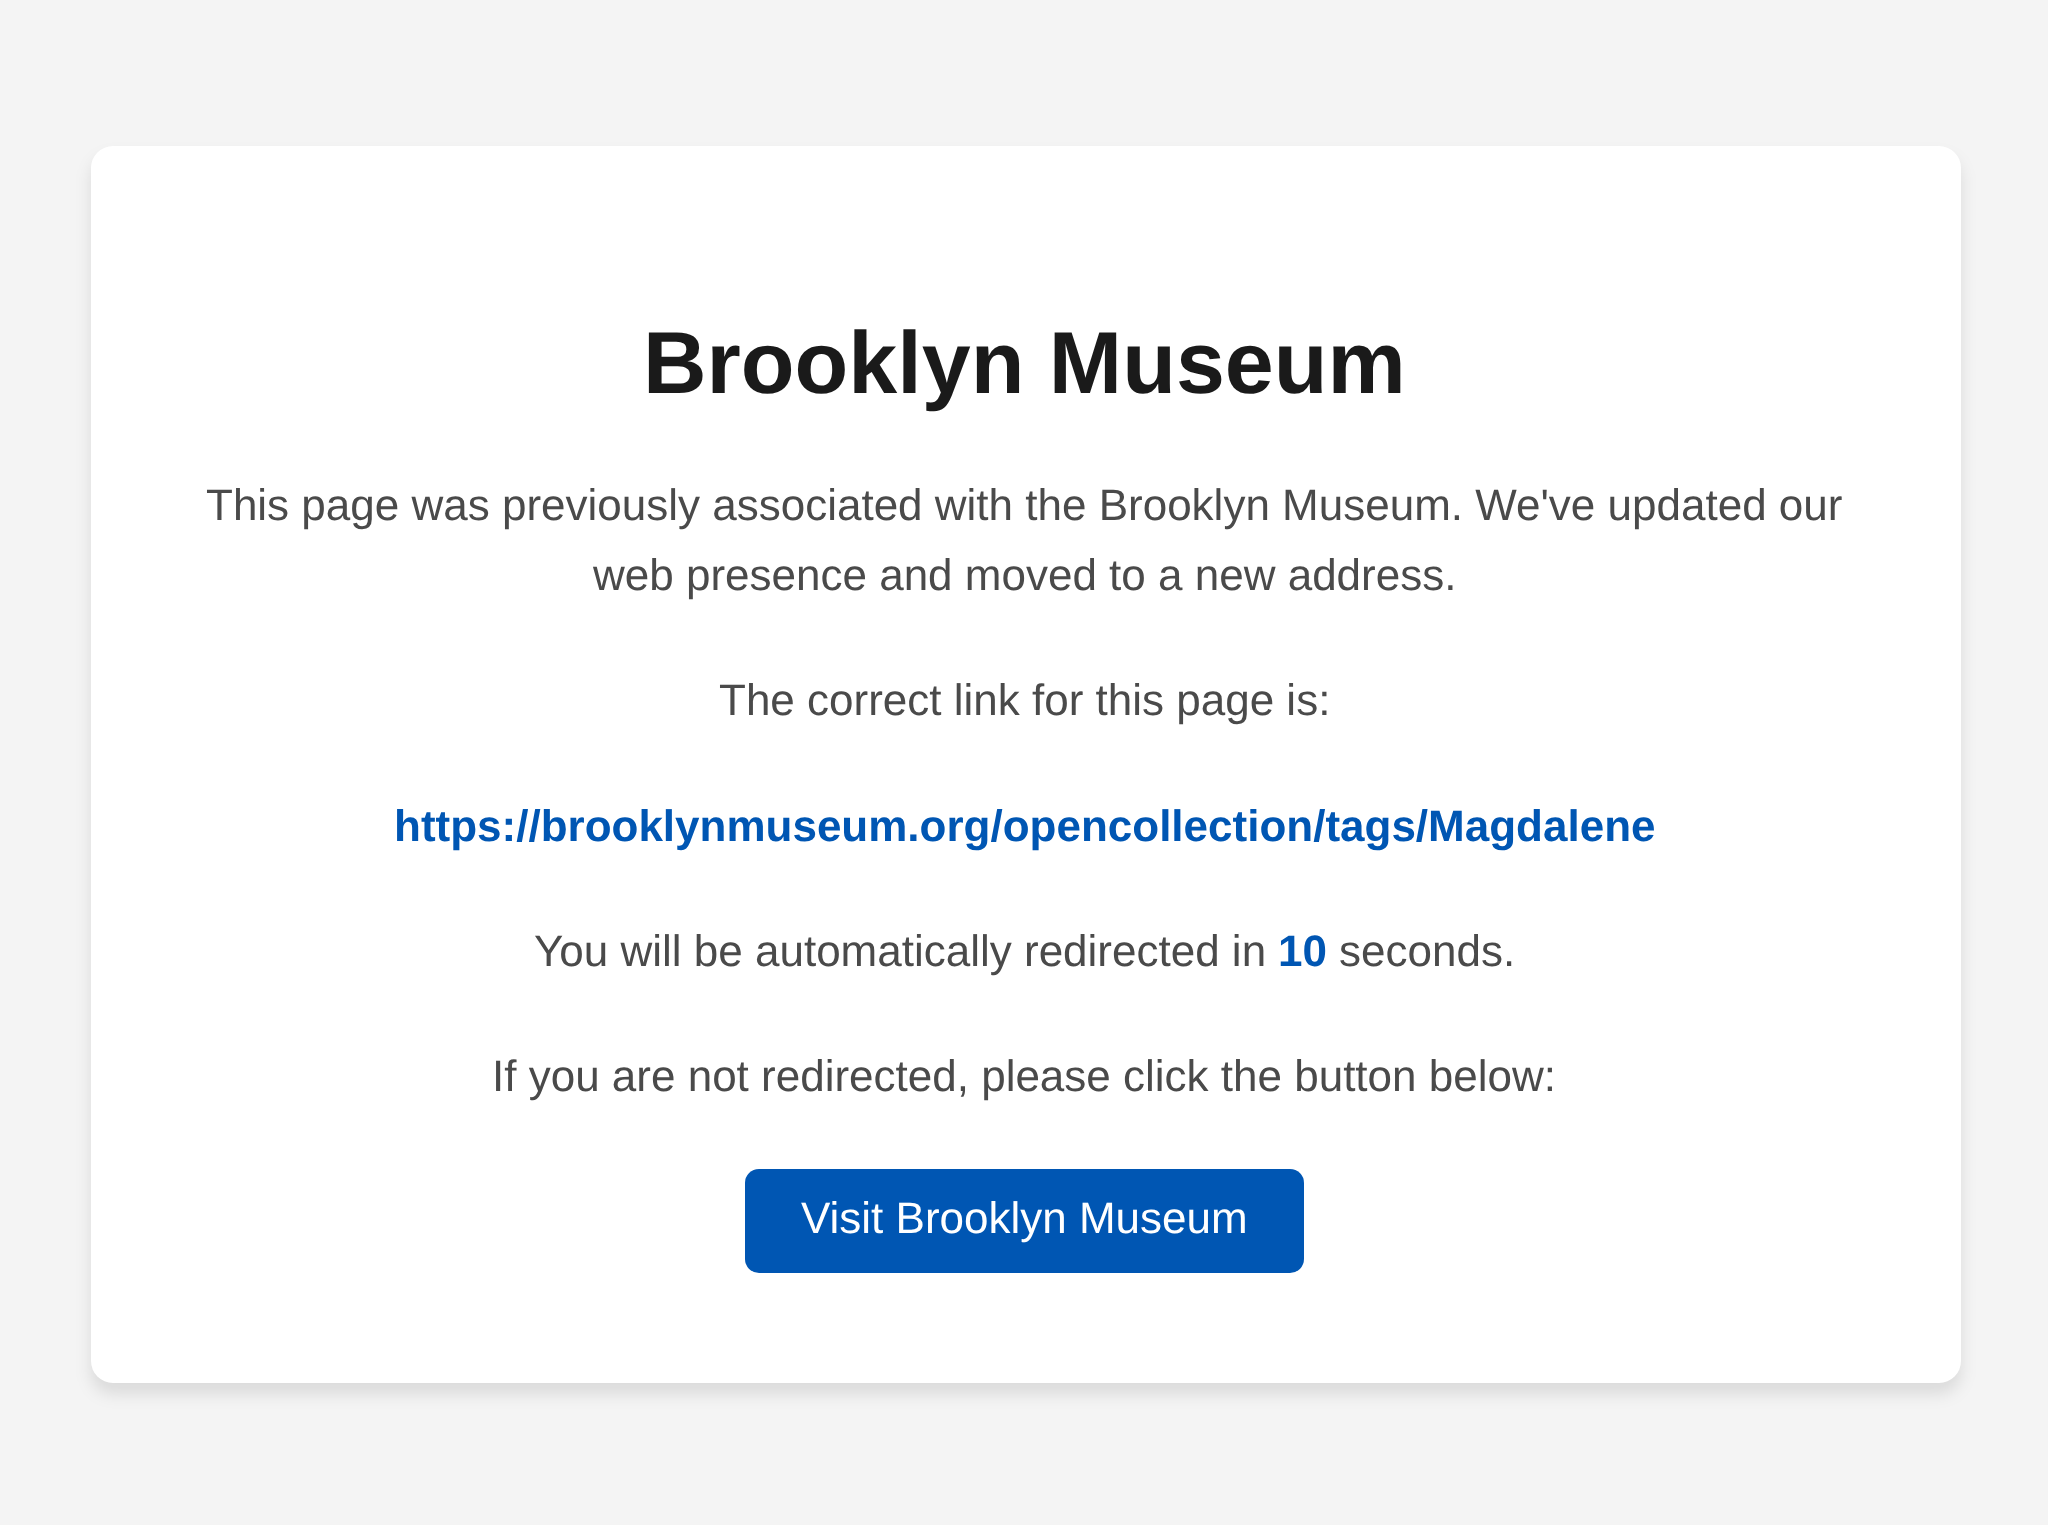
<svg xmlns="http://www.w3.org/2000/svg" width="2048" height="1525">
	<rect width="100%" height="100%" fill="#F4F4F4" />
	<rect x="91" y="157" width="1870" height="1237" rx="22" fill="#000000" fill-opacity="0.1" filter="blur(8px)" />
	<rect x="91" y="146" width="1870" height="1237" rx="22" fill="#FFFFFF" />
	<text x="643" y="393" font-family="Liberation Sans" font-size="88" font-weight="700" fill="#1A1A1A">Brooklyn Museum</text>
	<g font-family="Liberation Sans" font-size="44" fill="#4A4A4A">
		<text x="206" y="520">This page was previously associated with the Brooklyn Museum. We've updated our</text>
		<text x="593" y="590">web presence and moved to a new address.</text>
		<text x="719" y="715">The correct link for this page is:</text>
	</g>
	<text x="394" y="841" font-family="Liberation Sans" font-size="44" font-weight="700" fill="#0056B3">https://brooklynmuseum.org/opencollection/tags/Magdalene</text>
	<text x="534" y="966" font-family="Liberation Sans" font-size="44" fill="#4A4A4A">You will be automatically redirected in</text>
	<text x="1278" y="966" font-family="Liberation Sans" font-size="44" font-weight="700" fill="#0056B3">10</text>
	<g font-family="Liberation Sans" font-size="44" fill="#4A4A4A">
		<text x="1339" y="966">seconds.</text>
		<text x="492" y="1091">If you are not redirected, please click the button below:</text>
	</g>
	<rect x="745" y="1169" width="559" height="104" rx="14" fill="#0056B3" />
	<text x="801" y="1233" font-family="Liberation Sans" font-size="44" fill="#FFFFFF">Visit Brooklyn Museum</text>
</svg>
